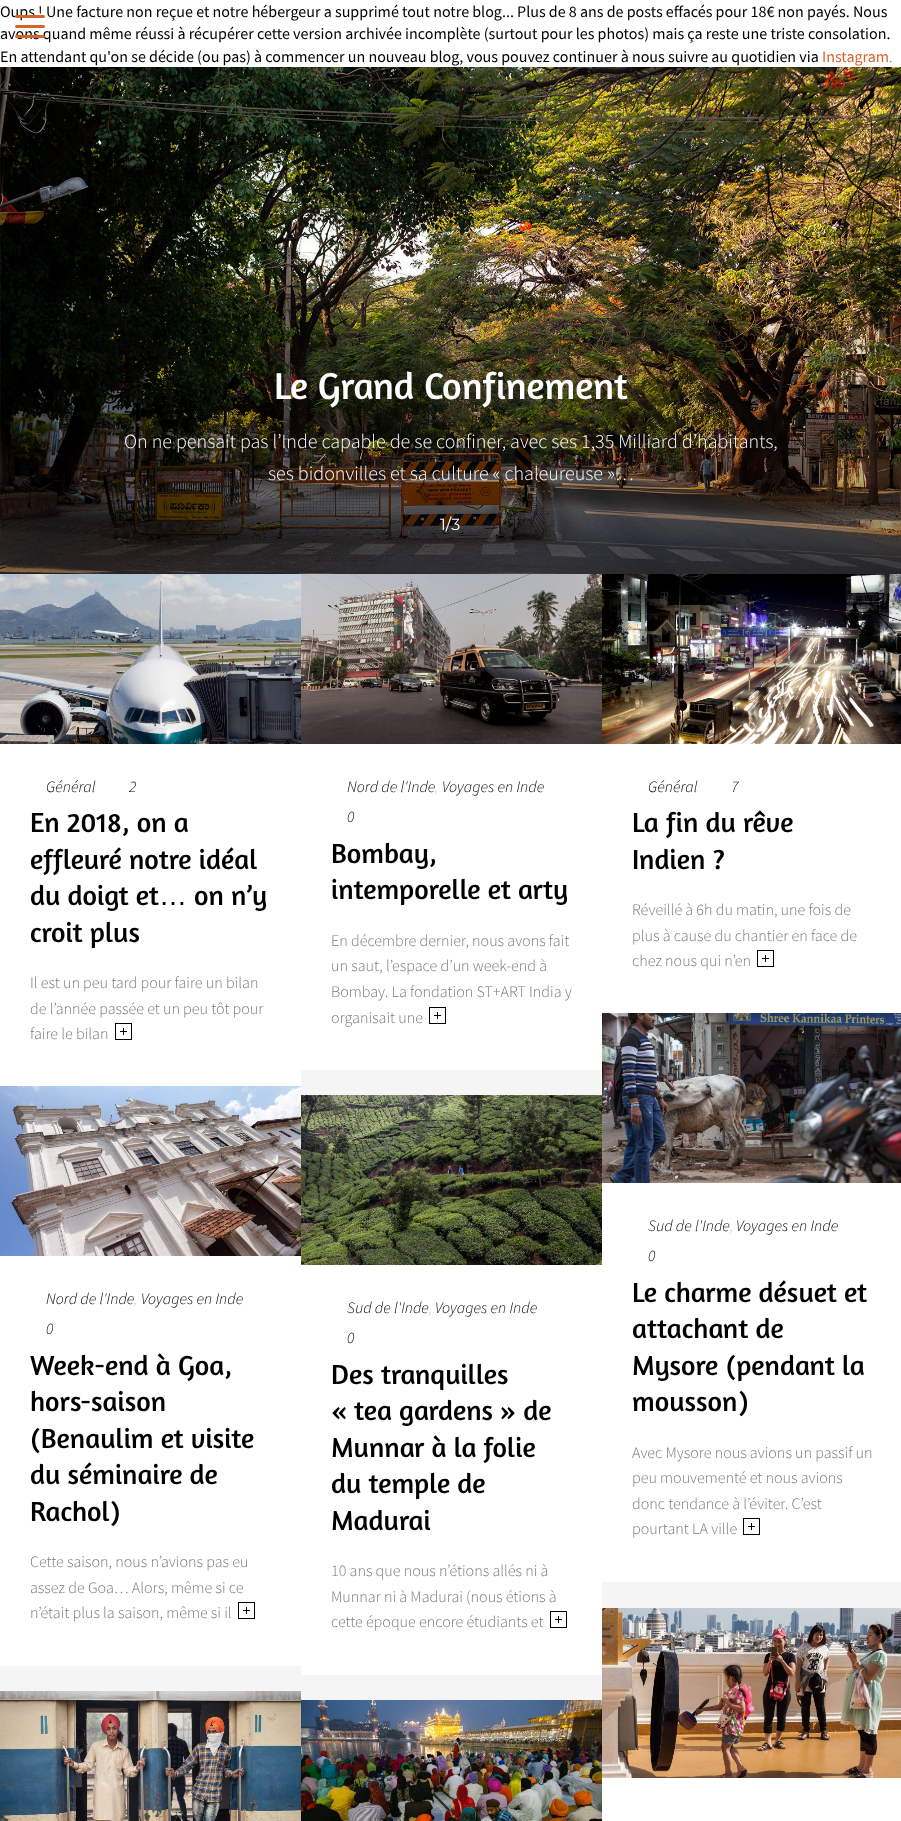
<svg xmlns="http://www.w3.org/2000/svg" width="901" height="1821">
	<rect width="100%" height="100%" fill="#FFFFFF" />
	<g font-family="Source Sans Pro" font-size="16" fill="#000000">
		<text x="0" y="17">Oups ! Une facture non reçue et notre hébergeur a supprimé tout notre blog... Plus de 8 ans de posts effacés pour 18€ non payés. Nous</text>
		<text x="0" y="39">avons quand même réussi à récupérer cette version archivée incomplète (surtout pour les photos) mais ça reste une triste consolation.</text>
		<text x="0" y="62">En attendant qu'on se décide (ou pas) à commencer un nouveau blog, vous pouvez continuer à nous suivre au quotidien via</text>
	</g>
	<text x="822" y="62" font-family="Source Sans Pro" font-size="16" fill="#D4642B">Instagram</text>
	<text x="889" y="62" font-family="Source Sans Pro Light" font-size="16" font-weight="300" fill="#777777">.</text>
	<rect x="15" y="25" width="30" height="3" rx="1.5" fill="#D4642B" />
	<rect x="15" y="15" width="30" height="3" rx="1.5" fill="#D4642B" />
	<rect x="15" y="35" width="30" height="3" rx="1.5" fill="#D4642B" />
	<image x="0" y="67" width="901" height="507" href="assets/img1.png" />
	<text x="274" y="399" font-family="Amaranth" font-size="38" fill="#FFFFFF">Le Grand Confinement</text>
	<g font-family="Source Sans Pro Light" font-size="20" font-weight="300" fill="#FFFFFF">
		<text x="124" y="448">On ne pensait pas l’Inde capable de se confiner, avec ses 1,35 Milliard d’habitants,</text>
		<text x="268" y="480">ses bidonvilles et sa culture « chaleureuse »…</text>
	</g>
	<text x="440" y="530" font-family="Montserrat" font-size="16" font-weight="100" fill="#FFFFFF">1/3</text>
	<rect x="0" y="1070" width="901" height="630" fill="#F5F5F5" />
	<rect x="0" y="1070" width="301" height="16" fill="#FFFFFF" />
	<image x="0" y="574" width="301" height="170" href="assets/img2.png" />
	<g font-family="Source Sans Pro Light" font-size="16" font-weight="300" font-style="italic" fill="#000000">
		<text x="46" y="792">Général</text>
		<text x="129" y="792">2</text>
	</g>
	<g font-family="Amaranth" font-size="28" fill="#000000">
		<text x="30" y="832">En 2018, on a</text>
		<text x="30" y="869">effleuré notre idéal</text>
		<text x="30" y="905">du doigt et</text>
	</g>
	<text x="159" y="905" font-family="Liberation Sans" font-size="28" fill="#000000">…</text>
	<g font-family="Amaranth" font-size="28" fill="#000000">
		<text x="194" y="905">on n’y</text>
		<text x="30" y="942">croit plus</text>
	</g>
	<g font-family="Source Sans Pro Light" font-size="16" font-weight="300" fill="#777777">
		<text x="30" y="988">Il est un peu tard pour faire un bilan</text>
		<text x="30" y="1014">de l’année passée et un peu tôt pour</text>
		<text x="30" y="1039">faire le bilan</text>
	</g>
	<rect x="115.5" y="1023.5" width="16" height="16" fill="none" stroke="#000000" />
	<rect x="120" y="1031" width="7" height="1" fill="#000000" />
	<rect x="123" y="1028" width="1" height="7" fill="#000000" />
	<image x="301" y="574" width="301" height="170" href="assets/img3.png" />
	<text x="347" y="792" font-family="Source Sans Pro Light" font-size="16" font-weight="300" font-style="italic" fill="#000000">Nord de l'Inde</text>
	<text x="435" y="792" font-family="Source Sans Pro Light" font-size="16" font-weight="300" font-style="italic" fill="#CECECE">,</text>
	<g font-family="Source Sans Pro Light" font-size="16" font-weight="300" font-style="italic" fill="#000000">
		<text x="442" y="792">Voyages en Inde</text>
		<text x="347" y="822">0</text>
	</g>
	<g font-family="Amaranth" font-size="28" fill="#000000">
		<text x="331" y="863">Bombay,</text>
		<text x="331" y="899">intemporelle et arty</text>
	</g>
	<g font-family="Source Sans Pro Light" font-size="16" font-weight="300" fill="#777777">
		<text x="331" y="946">En décembre dernier, nous avons fait</text>
		<text x="331" y="971">un saut, l’espace d’un week-end à</text>
		<text x="331" y="997">Bombay. La fondation ST+ART India y</text>
		<text x="331" y="1023">organisait une</text>
	</g>
	<rect x="429.5" y="1007.5" width="16" height="16" fill="none" stroke="#000000" />
	<rect x="434" y="1015" width="7" height="1" fill="#000000" />
	<rect x="437" y="1012" width="1" height="7" fill="#000000" />
	<image x="602" y="574" width="299" height="170" href="assets/img4.png" />
	<g font-family="Source Sans Pro Light" font-size="16" font-weight="300" font-style="italic" fill="#000000">
		<text x="648" y="792">Général</text>
		<text x="731" y="792">7</text>
	</g>
	<g font-family="Amaranth" font-size="28" fill="#000000">
		<text x="632" y="832">La fin du rêve</text>
		<text x="632" y="869">Indien ?</text>
	</g>
	<g font-family="Source Sans Pro Light" font-size="16" font-weight="300" fill="#777777">
		<text x="632" y="915">Réveillé à 6h du matin, une fois de</text>
		<text x="632" y="941">plus à cause du chantier en face de</text>
		<text x="632" y="966">chez nous qui n’en</text>
	</g>
	<rect x="757.5" y="950.5" width="16" height="16" fill="none" stroke="#000000" />
	<rect x="762" y="958" width="7" height="1" fill="#000000" />
	<rect x="765" y="955" width="1" height="7" fill="#000000" />
	<rect x="0" y="1256" width="301" height="410" fill="#FFFFFF" />
	<image x="0" y="1086" width="301" height="170" href="assets/img5.png" />
	<text x="46" y="1304" font-family="Source Sans Pro Light" font-size="16" font-weight="300" font-style="italic" fill="#000000">Nord de l'Inde</text>
	<text x="134" y="1304" font-family="Source Sans Pro Light" font-size="16" font-weight="300" font-style="italic" fill="#CECECE">,</text>
	<g font-family="Source Sans Pro Light" font-size="16" font-weight="300" font-style="italic" fill="#000000">
		<text x="141" y="1304">Voyages en Inde</text>
		<text x="46" y="1334">0</text>
	</g>
	<g font-family="Amaranth" font-size="28" fill="#000000">
		<text x="30" y="1375">Week-end à Goa,</text>
		<text x="30" y="1411">hors-saison</text>
		<text x="30" y="1448">(Benaulim et visite</text>
		<text x="30" y="1484">du séminaire de</text>
		<text x="30" y="1521">Rachol)</text>
	</g>
	<g font-family="Source Sans Pro Light" font-size="16" font-weight="300" fill="#777777">
		<text x="30" y="1567">Cette saison, nous n’avions pas eu</text>
		<text x="30" y="1593">assez de Goa… Alors, même si ce</text>
		<text x="30" y="1618">n’était plus la saison, même si il</text>
	</g>
	<rect x="238.5" y="1602.5" width="16" height="16" fill="none" stroke="#000000" />
	<rect x="243" y="1610" width="7" height="1" fill="#000000" />
	<rect x="246" y="1607" width="1" height="7" fill="#000000" />
	<rect x="301" y="1265" width="301" height="410" fill="#FFFFFF" />
	<image x="301" y="1095" width="301" height="170" href="assets/img6.png" />
	<text x="347" y="1313" font-family="Source Sans Pro Light" font-size="16" font-weight="300" font-style="italic" fill="#000000">Sud de l'Inde</text>
	<text x="429" y="1313" font-family="Source Sans Pro Light" font-size="16" font-weight="300" font-style="italic" fill="#CECECE">,</text>
	<g font-family="Source Sans Pro Light" font-size="16" font-weight="300" font-style="italic" fill="#000000">
		<text x="435" y="1313">Voyages en Inde</text>
		<text x="347" y="1343">0</text>
	</g>
	<g font-family="Amaranth" font-size="28" fill="#000000">
		<text x="331" y="1384">Des tranquilles</text>
		<text x="331" y="1420">« tea gardens » de</text>
		<text x="331" y="1457">Munnar à la folie</text>
		<text x="331" y="1493">du temple de</text>
		<text x="331" y="1530">Madurai</text>
	</g>
	<g font-family="Source Sans Pro Light" font-size="16" font-weight="300" fill="#777777">
		<text x="331" y="1576">10 ans que nous n’étions allés ni à</text>
		<text x="331" y="1602">Munnar ni à Madurai (nous étions à</text>
		<text x="331" y="1627">cette époque encore étudiants et</text>
	</g>
	<rect x="550.5" y="1611.5" width="16" height="16" fill="none" stroke="#000000" />
	<rect x="555" y="1619" width="7" height="1" fill="#000000" />
	<rect x="558" y="1616" width="1" height="7" fill="#000000" />
	<rect x="602" y="1183" width="299" height="399" fill="#FFFFFF" />
	<image x="602" y="1013" width="299" height="170" href="assets/img7.png" />
	<text x="648" y="1231" font-family="Source Sans Pro Light" font-size="16" font-weight="300" font-style="italic" fill="#000000">Sud de l'Inde</text>
	<text x="730" y="1231" font-family="Source Sans Pro Light" font-size="16" font-weight="300" font-style="italic" fill="#CECECE">,</text>
	<g font-family="Source Sans Pro Light" font-size="16" font-weight="300" font-style="italic" fill="#000000">
		<text x="736" y="1231">Voyages en Inde</text>
		<text x="648" y="1261">0</text>
	</g>
	<g font-family="Amaranth" font-size="28" fill="#000000">
		<text x="632" y="1302">Le charme désuet et</text>
		<text x="632" y="1338">attachant de</text>
		<text x="632" y="1375">Mysore (pendant la</text>
		<text x="632" y="1411">mousson)</text>
	</g>
	<g font-family="Source Sans Pro Light" font-size="16" font-weight="300" fill="#777777">
		<text x="632" y="1458">Avec Mysore nous avions un passif un</text>
		<text x="632" y="1483">peu mouvementé et nous avions</text>
		<text x="632" y="1509">donc tendance à l’éviter. C’est</text>
		<text x="632" y="1534">pourtant LA ville</text>
	</g>
	<rect x="743.5" y="1518.5" width="16" height="16" fill="none" stroke="#000000" />
	<rect x="748" y="1526" width="7" height="1" fill="#000000" />
	<rect x="751" y="1523" width="1" height="7" fill="#000000" />
	<image x="0" y="1691" width="301" height="130" href="assets/img8.png" />
	<image x="301" y="1700" width="301" height="121" href="assets/img9.png" />
	<image x="602" y="1608" width="299" height="170" href="assets/img10.png" />
</svg>
